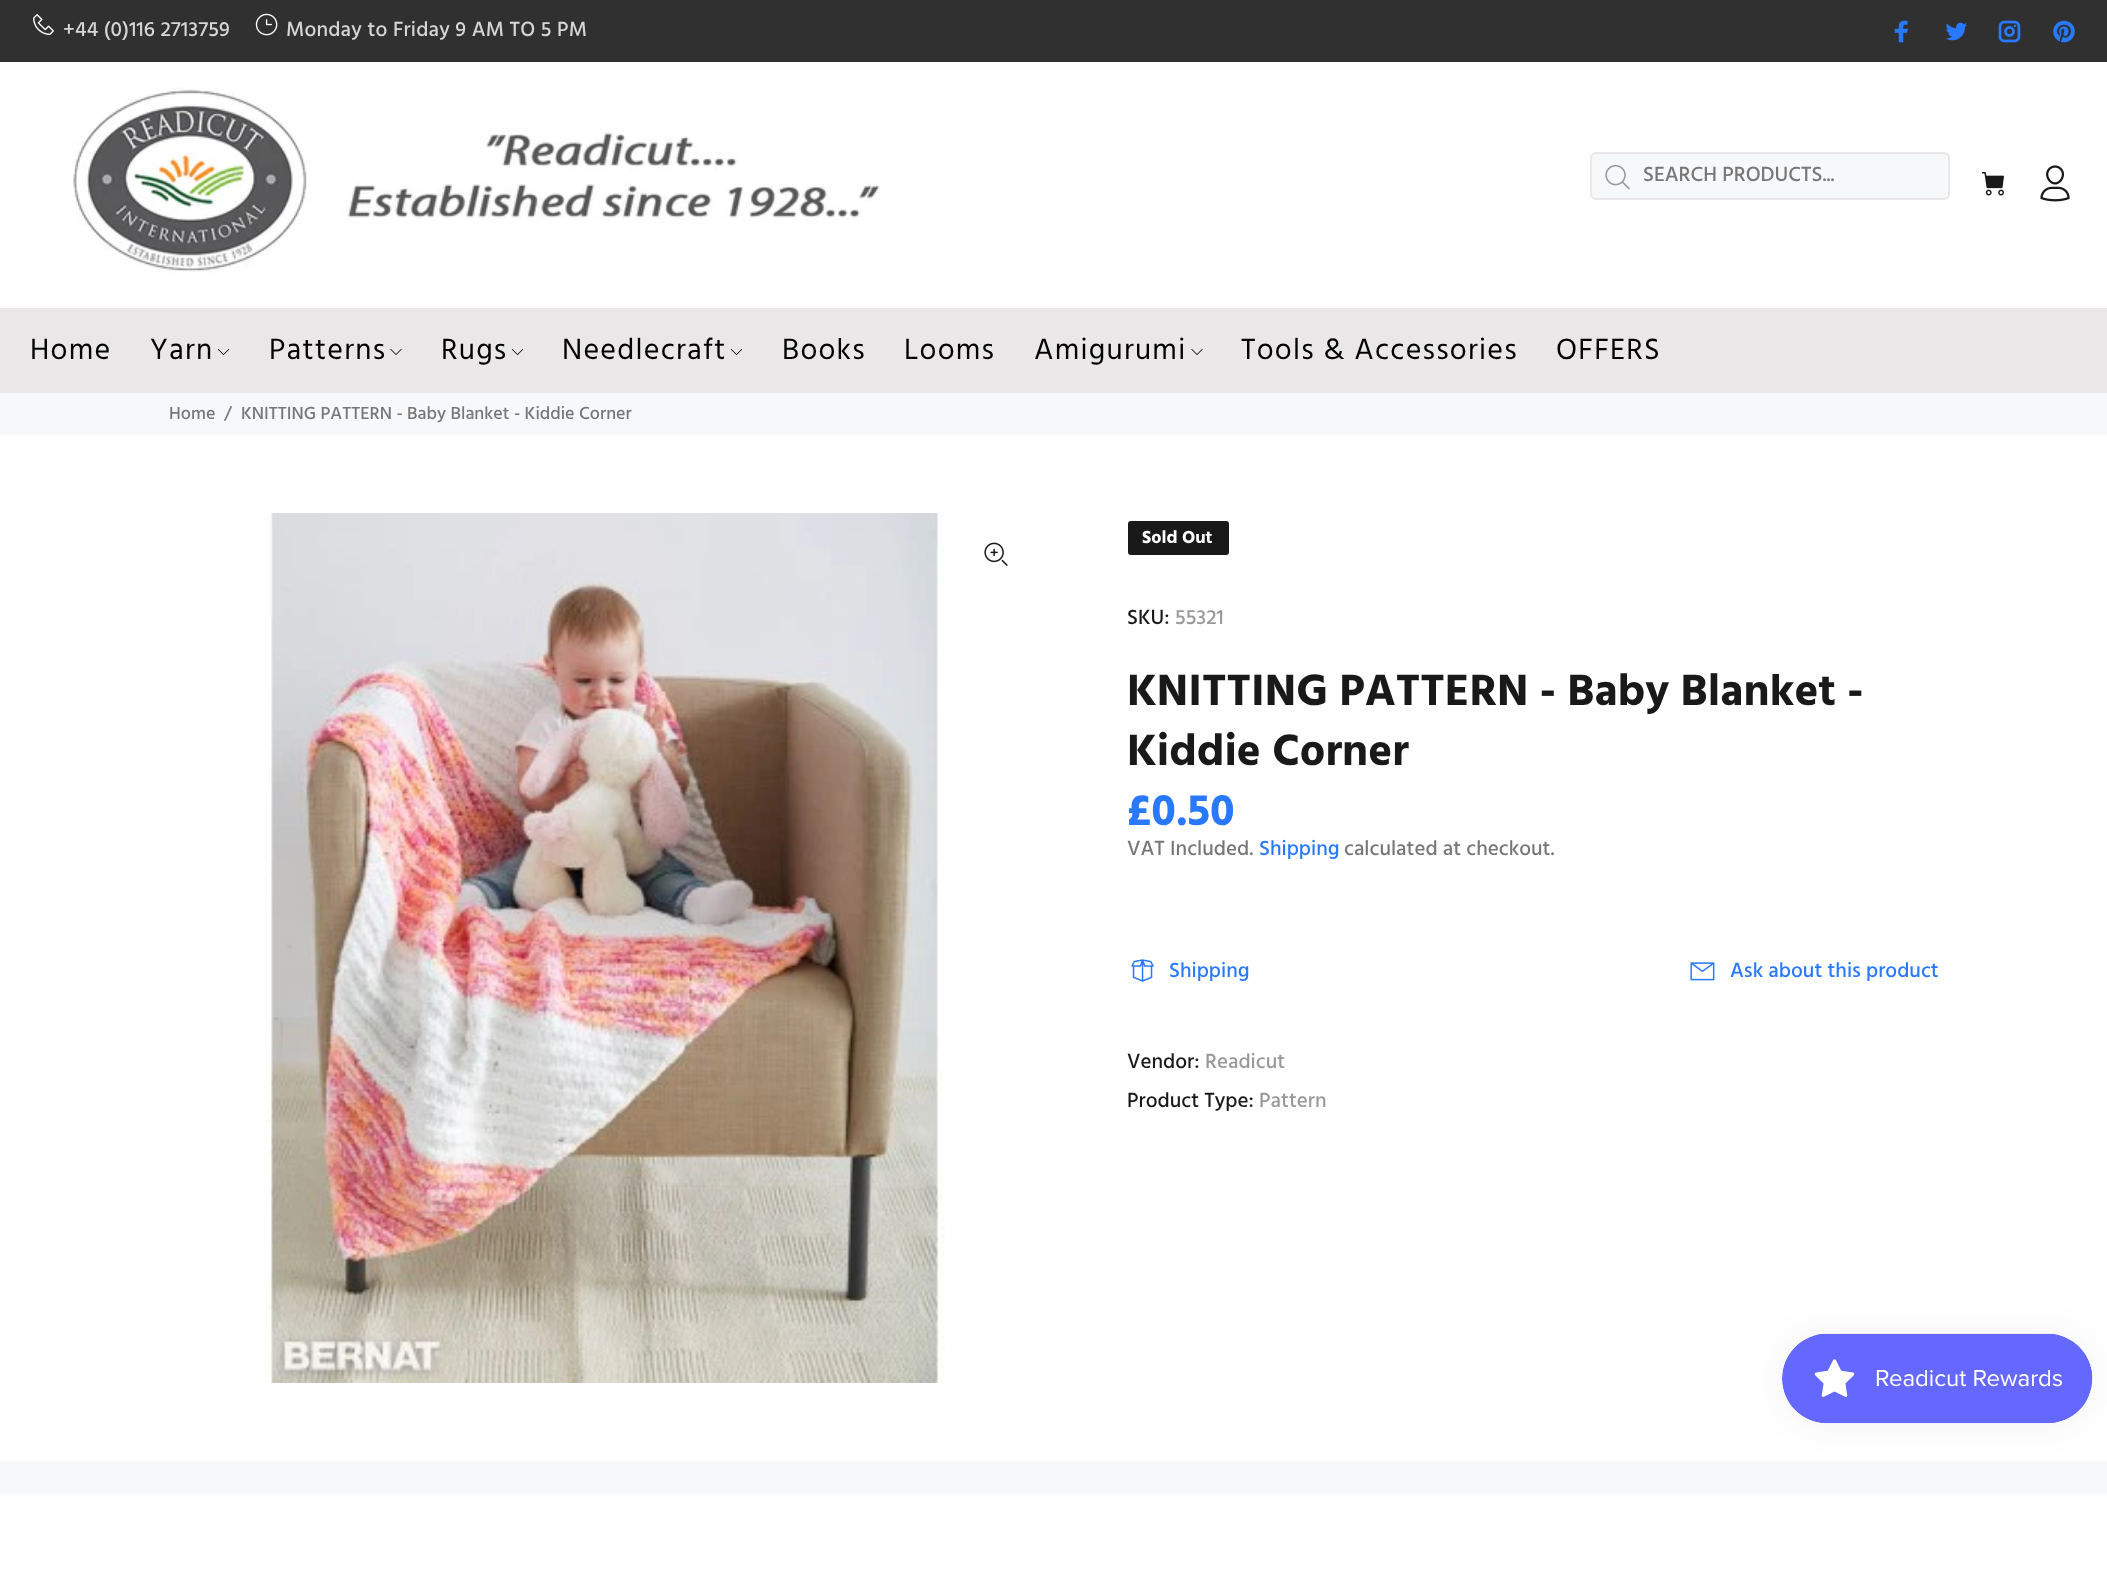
<svg xmlns="http://www.w3.org/2000/svg" width="2107" height="1573">
	<rect width="100%" height="100%" fill="#FFFFFF" />
	<rect x="0" y="0" width="2107" height="62" fill="#303030" />
	<image x="33" y="14" width="21" height="21" href="assets/img1.png" />
	<text x="63" y="36" font-family="Hind" font-size="21" font-weight="500" letter-spacing="0.2" fill="#D6D6D6">+44 (0)116 2713759</text>
	<image x="255" y="13" width="23" height="23" href="assets/img2.png" />
	<text x="286" y="36" font-family="Hind" font-size="21" font-weight="500" letter-spacing="0.2" fill="#D6D6D6">Monday to Friday 9 AM TO 5 PM</text>
	<image x="1894" y="20" width="15" height="23" href="assets/img3.png" />
	<image x="1945" y="22" width="22" height="19" href="assets/img4.png" />
	<image x="1998" y="20" width="23" height="23" href="assets/img5.png" />
	<image x="2053" y="20" width="22" height="23" href="assets/img6.png" />
	<image x="73" y="87" width="807" height="186" href="assets/img7.png" />
	<rect x="1591" y="153" width="358" height="46" rx="5" fill="#F7F8FA" stroke="#E9E7E7" stroke-width="2" />
	<image x="1605" y="164" width="25" height="26" href="assets/img8.png" />
	<text x="1643" y="181" font-family="Hind" font-size="21" font-weight="500" fill="#777777">SEARCH PRODUCTS...</text>
	<image x="1982" y="172" width="22" height="24" href="assets/img9.png" />
	<image x="2040" y="165" width="30" height="37" href="assets/img10.png" />
	<rect x="0" y="308" width="2107" height="85" fill="#E9E7E7" />
	<g font-family="Hind" font-size="30" letter-spacing="1.25" fill="#000000">
		<text x="30" y="359">Home</text>
		<text x="150" y="359">Yarn</text>
	</g>
	<image x="217" y="349" width="13" height="6" href="assets/img11.png" />
	<text x="269" y="359" font-family="Hind" font-size="30" letter-spacing="1.25" fill="#000000">Patterns</text>
	<image x="390" y="349" width="12" height="6" href="assets/img12.png" />
	<text x="441" y="359" font-family="Hind" font-size="30" letter-spacing="1.25" fill="#000000">Rugs</text>
	<image x="511" y="349" width="13" height="6" href="assets/img11.png" />
	<text x="562" y="359" font-family="Hind" font-size="30" letter-spacing="1.25" fill="#000000">Needlecraft</text>
	<image x="730" y="349" width="13" height="6" href="assets/img11.png" />
	<g font-family="Hind" font-size="30" letter-spacing="1.25" fill="#000000">
		<text x="782" y="359">Books</text>
		<text x="904" y="359">Looms</text>
		<text x="1034" y="359">Amigurumi</text>
	</g>
	<image x="1191" y="349" width="12" height="6" href="assets/img12.png" />
	<g font-family="Hind" font-size="30" letter-spacing="1.25" fill="#000000">
		<text x="1241" y="359">Tools &amp; Accessories</text>
		<text x="1556" y="359">OFFERS</text>
	</g>
	<rect x="0" y="393" width="2107" height="42" fill="#F7F8FA" />
	<g font-family="Hind" font-size="18" font-weight="500" fill="#777777">
		<text x="169" y="419">Home</text>
		<text x="224" y="419">/</text>
		<text x="241" y="419">KNITTING PATTERN - Baby Blanket - Kiddie Corner</text>
	</g>
	<image x="264" y="513" width="681" height="870" href="assets/img13.png" />
	<image x="984" y="542" width="24" height="24" href="assets/img14.png" />
	<rect x="1128" y="521" width="101" height="34" rx="3" fill="#191919" />
	<text x="1142" y="543" font-family="Hind" font-size="18" font-weight="700" fill="#FFFFFF">Sold Out</text>
	<text x="1127" y="624" font-family="Hind" font-size="21" font-weight="500" fill="#191919">SKU:</text>
	<text x="1175" y="624" font-family="Hind" font-size="21" font-weight="500" fill="#999999">55321</text>
	<g font-family="Hind" font-size="45" font-weight="700" letter-spacing="0.05" fill="#191919">
		<text x="1127" y="705">KNITTING PATTERN - Baby Blanket -</text>
		<text x="1127" y="765">Kiddie Corner</text>
	</g>
	<text x="1127" y="825" font-family="Hind" font-size="45" font-weight="700" fill="#2879FE">£0.50</text>
	<text x="1127" y="855" font-family="Hind" font-size="21" font-weight="500" fill="#777777">VAT Included.</text>
	<text x="1259" y="855" font-family="Hind" font-size="21" font-weight="500" fill="#2879FE">Shipping</text>
	<text x="1344" y="855" font-family="Hind" font-size="21" font-weight="500" fill="#777777">calculated at checkout.</text>
	<image x="1131" y="959" width="23" height="23" href="assets/img15.png" />
	<text x="1169" y="977" font-family="Hind" font-size="21" font-weight="500" fill="#2879FE">Shipping</text>
	<image x="1690" y="962" width="25" height="19" href="assets/img16.png" />
	<text x="1730" y="977" font-family="Hind" font-size="21" font-weight="500" fill="#2879FE">Ask about this product</text>
	<text x="1127" y="1068" font-family="Hind" font-size="21" font-weight="500" fill="#191919">Vendor:</text>
	<text x="1205" y="1068" font-family="Hind" font-size="21" font-weight="500" fill="#999999">Readicut</text>
	<text x="1127" y="1107" font-family="Hind" font-size="21" font-weight="500" fill="#191919">Product Type:</text>
	<text x="1259" y="1107" font-family="Hind" font-size="21" font-weight="500" fill="#999999">Pattern</text>
	<rect x="0" y="1461" width="2107" height="33" fill="#F7F8FA" />
	<rect x="1782" y="1334" width="311" height="90" rx="45" fill="#000000" fill-opacity="0.05" filter="blur(19px)" />
	<image x="1782" y="1333" width="311" height="91" href="assets/img17.png" />
</svg>
